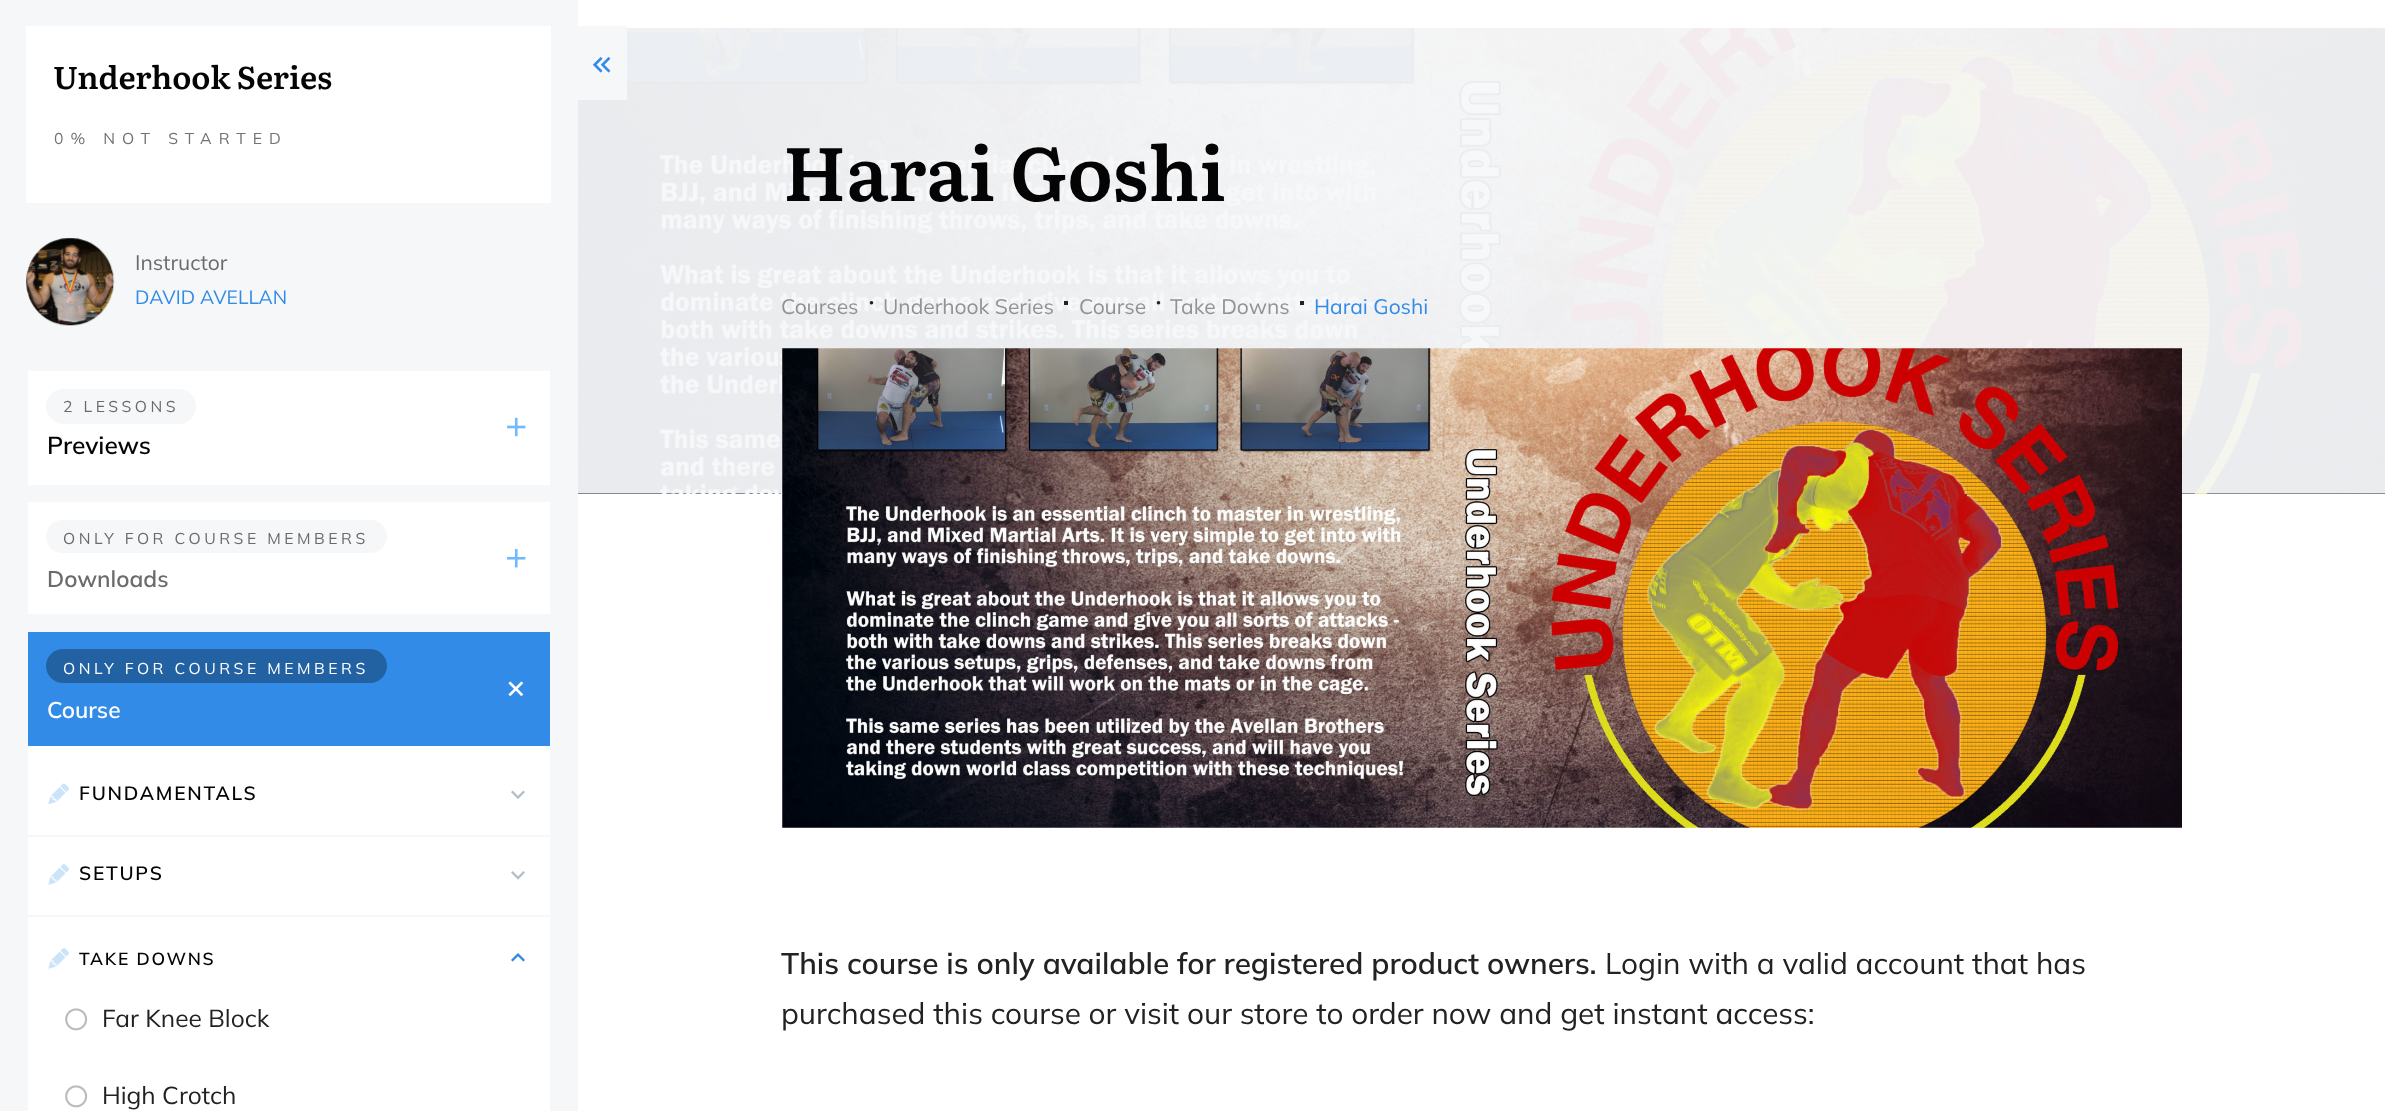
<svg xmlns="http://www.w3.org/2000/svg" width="2385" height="1111">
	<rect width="100%" height="100%" fill="#FFFFFF" />
	<rect x="0" y="0" width="578" height="1111" fill="#F5F7F9" />
	<image x="578" y="28" width="1807" height="466" href="assets/img12.png" />
	<rect x="578" y="26" width="49" height="74" fill="#F5F7F9" />
	<image x="592" y="57" width="19" height="16" href="assets/img1.png" />
	<rect x="26" y="26" width="525" height="177" fill="#FFFFFF" />
	<text x="53" y="89" font-family="Literata" font-size="31.5" font-weight="600" fill="#040404">Underhook Series</text>
	<text x="54" y="144" font-family="Mulish" font-size="15.75" letter-spacing="7" fill="#727272">0% NOT STARTED</text>
	<image x="26" y="237" width="89" height="89" href="assets/img2.png" />
	<text x="135" y="270" font-family="Mulish" font-size="21" fill="#6A6B6C">Instructor</text>
	<text x="135" y="304" font-family="Mulish" font-size="19.25" fill="#328CE7">DAVID AVELLAN</text>
	<rect x="28" y="371" width="522" height="114" fill="#FFFFFF" />
	<rect x="46" y="389" width="150" height="35" rx="17.5" fill="#F5F7F9" />
	<text x="63" y="412" font-family="Mulish" font-size="15.75" letter-spacing="3.5" fill="#6A6B6C">2 LESSONS</text>
	<text x="47" y="454" font-family="Mulish" font-size="24.5" font-weight="600" fill="#040404">Previews</text>
	<image x="507" y="417" width="19" height="20" href="assets/img3.png" />
	<rect x="28" y="502" width="522" height="112" fill="#FFFFFF" />
	<rect x="46" y="520" width="341" height="33" rx="16.5" fill="#F5F7F9" />
	<text x="63" y="544" font-family="Mulish" font-size="15.75" letter-spacing="3.5" fill="#6A6B6C">ONLY FOR COURSE MEMBERS</text>
	<text x="47" y="587" font-family="Mulish" font-size="22.75" font-weight="600" fill="#6A6B6C">Downloads</text>
	<image x="507" y="549" width="19" height="19" href="assets/img4.png" />
	<rect x="28" y="746" width="522" height="365" fill="#FFFFFF" />
	<rect x="28" y="632" width="522" height="114" fill="#328CE7" />
	<rect x="46" y="649" width="341" height="34" rx="17" fill="#2362A2" />
	<text x="63" y="674" font-family="Mulish" font-size="15.75" letter-spacing="3.5" fill="#FFFFFF">ONLY FOR COURSE MEMBERS</text>
	<text x="47" y="718" font-family="Mulish" font-size="22.75" font-weight="600" fill="#FFFFFF">Course</text>
	<image x="508" y="681" width="16" height="16" href="assets/img5.png" />
	<rect x="28" y="835" width="522" height="2" fill="#F5F7F9" />
	<image x="48" y="783" width="21" height="22" href="assets/img6.png" />
	<text x="79" y="800" font-family="Mulish" font-size="19.25" font-weight="600" letter-spacing="1.75" fill="#040404">FUNDAMENTALS</text>
	<image x="511" y="790" width="14" height="9" href="assets/img7.png" />
	<rect x="28" y="915" width="522" height="2" fill="#F5F7F9" />
	<image x="48" y="864" width="21" height="21" href="assets/img8.png" />
	<text x="79" y="880" font-family="Mulish" font-size="19.25" font-weight="600" letter-spacing="1.75" fill="#040404">SETUPS</text>
	<image x="511" y="871" width="14" height="9" href="assets/img9.png" />
	<image x="48" y="948" width="21" height="21" href="assets/img8.png" />
	<text x="79" y="965" font-family="Mulish" font-size="17.5" font-weight="600" letter-spacing="1.75" fill="#040404">TAKE DOWNS</text>
	<image x="511" y="953" width="14" height="9" href="assets/img10.png" />
	<image x="65" y="1008" width="23" height="23" href="assets/img11.png" />
	<text x="102" y="1027" font-family="Mulish" font-size="24.5" fill="#222222">Far Knee Block</text>
	<image x="65" y="1085" width="23" height="23" href="assets/img11.png" />
	<text x="102" y="1104" font-family="Mulish" font-size="24.5" fill="#222222">High Crotch</text>
	<text x="783" y="201" font-family="Literata" font-size="75.25" font-weight="600" fill="#040404">Harai Goshi</text>
	<text x="781" y="314" font-family="Mulish" font-size="21" fill="#939292">Courses</text>
	<image x="869" y="301" width="5" height="4" href="assets/img13.png" />
	<text x="883" y="314" font-family="Mulish" font-size="21" fill="#939292">Underhook Series</text>
	<rect x="1064" y="301" width="4" height="4" fill="#222222" />
	<text x="1079" y="314" font-family="Mulish" font-size="21" fill="#939292">Course</text>
	<image x="1156" y="301" width="5" height="4" href="assets/img14.png" />
	<text x="1170" y="314" font-family="Mulish" font-size="21" fill="#939292">Take Downs</text>
	<rect x="1300" y="301" width="4" height="4" fill="#222222" />
	<text x="1314" y="314" font-family="Mulish" font-size="21" fill="#328CE7">Harai Goshi</text>
	<image x="782" y="348" width="1400" height="480" href="assets/img15.png" />
	<text x="781" y="974" font-family="Mulish" font-size="29.75" font-weight="600" fill="#222222">This course is only available for registered product owners.</text>
	<g font-family="Mulish" font-size="29.75" fill="#222222">
		<text x="1605" y="974">Login with a valid account that has</text>
		<text x="781" y="1024">purchased this course or visit our store to order now and get instant access:</text>
	</g>
</svg>
